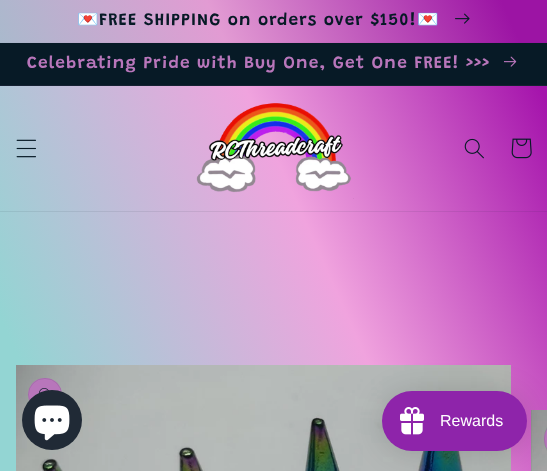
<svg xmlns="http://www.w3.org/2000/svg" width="547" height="471">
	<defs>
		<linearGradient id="g1" gradientUnits="userSpaceOnUse" x1="-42" y1="376" x2="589" y2="95"><stop offset="0.09" stop-color="#93D5D3" /><stop offset="0.55" stop-color="#F0A3DE" /><stop offset="0.94" stop-color="#A514AC" /></linearGradient>
		<linearGradient id="g2" gradientUnits="userSpaceOnUse" x1="-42" y1="376" x2="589" y2="95"><stop offset="0.09" stop-color="#8BCAC9" /><stop offset="0.55" stop-color="#E29BD3" /><stop offset="0.94" stop-color="#9C14A4" /></linearGradient>
		<linearGradient id="g3" gradientUnits="userSpaceOnUse" x1="-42" y1="376" x2="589" y2="95"><stop offset="0.09" stop-color="#88C6C5" /><stop offset="0.55" stop-color="#DD98CF" /><stop offset="0.94" stop-color="#9814A1" /></linearGradient>
	</defs>
	<rect width="100%" height="100%" fill="#FFFFFF" />
	<rect x="0" y="86" width="547" height="385" fill="url(#g1)" />
	<rect x="0" y="0" width="547" height="42" fill="url(#g2)" />
	<rect x="0" y="42" width="547" height="1" fill="url(#g3)" />
	<rect x="0" y="211" width="547" height="1" fill="url(#g3)" />
	<text x="77" y="25" font-family="Noto Color Emoji" font-size="17.4" font-weight="700" letter-spacing="1.05" fill="#071A26">💌</text>
	<text x="99" y="25" font-family="Grandstander" font-size="17.4" font-weight="600" letter-spacing="1.05" fill="#071A26">FREE SHIPPING on orders over $150!</text>
	<text x="417" y="25" font-family="Noto Color Emoji" font-size="17.4" font-weight="700" letter-spacing="1.05" fill="#071A26">💌</text>
	<image x="455" y="13" width="15" height="11" href="assets/img1.png" />
	<rect x="0" y="43" width="547" height="42" fill="#071A26" />
	<rect x="0" y="85" width="547" height="1" fill="#152132" />
	<text x="27" y="68" font-family="Grandstander" font-size="17.4" font-weight="600" letter-spacing="1.05" fill="#B876BB">Celebrating Pride with Buy One, Get One FREE! &gt;&gt;&gt;</text>
	<image x="504" y="56" width="13" height="11" href="assets/img2.png" />
	<image x="16" y="139" width="20" height="19" href="assets/img3.png" />
	<image x="196" y="103" width="158" height="96" href="assets/img4.png" />
	<image x="464" y="138" width="20" height="21" href="assets/img5.png" />
	<image x="511" y="138" width="21" height="21" href="assets/img6.png" />
	<image x="16" y="365" width="495" height="106" href="assets/img7.png" />
	<rect x="28" y="378" width="34" height="33" rx="16.5" fill="#B876BB" />
	<rect x="28.5" y="378.5" width="33" height="32" rx="16" fill="none" stroke="#071A26" stroke-opacity="0.1" />
	<image x="39" y="388" width="10" height="5" href="assets/img8.png" />
	<image x="531" y="410" width="16" height="61" href="assets/img9.png" />
	<path d="M560.5 422H547V456H560.5C551.5 456 544 448.5 544 439.5V438.5C544 429.5 551.5 422 560.5 422Z" fill="#B876BB" />
	<rect x="544.5" y="422.5" width="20" height="33" rx="16" fill="none" stroke="#071A26" stroke-opacity="0.1" />
	<circle cx="52" cy="420" r="30" fill="#202A36" />
	<image x="34" y="405" width="36" height="36" href="assets/img10.png" />
	<rect x="382" y="393" width="145" height="60" rx="30" fill="#000000" fill-opacity="0.15" filter="blur(15px)" />
	<rect x="382" y="391" width="145" height="60" rx="30" fill="#8E24AA" />
	<image x="400" y="407" width="24" height="28" href="assets/img11.png" />
	<text x="440" y="426" font-family="Liberation Sans" font-size="16" fill="#FFFFFF">Rewards</text>
</svg>
